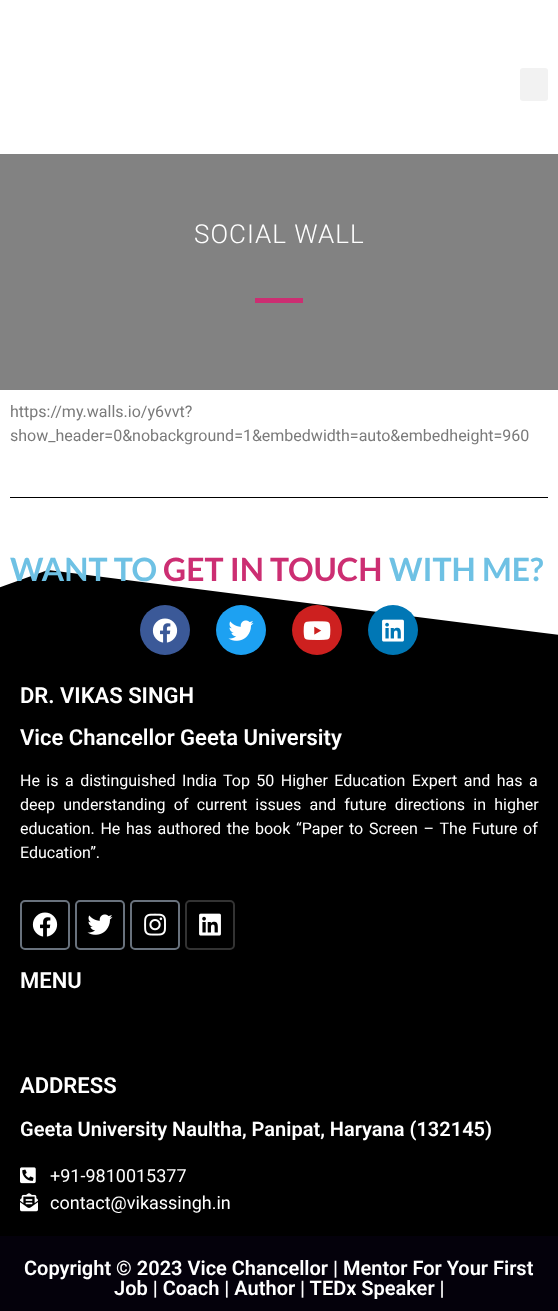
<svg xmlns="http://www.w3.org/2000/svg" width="558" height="1311">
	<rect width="100%" height="100%" fill="#FFFFFF" />
	<rect x="520" y="68" width="28" height="33" rx="3" fill="#F2F2F2" />
	<rect x="0" y="154" width="558" height="236" fill="#828282" />
	<text x="194" y="243" font-family="Roboto" font-size="26" font-weight="300" letter-spacing="1" fill="#FFFFFF">SOCIAL WALL</text>
	<rect x="255" y="298" width="48" height="5" fill="#CC2E72" />
	<g font-family="Roboto" font-size="16" fill="#7A7A7A">
		<text x="10" y="417">https://my.walls.io/y6vvt?</text>
		<text x="10" y="441">show_header=0&amp;nobackground=1&amp;embedwidth=auto&amp;embedheight=960</text>
	</g>
	<rect x="10" y="497" width="538" height="1" fill="#000000" />
	<path d="M48 570L-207 661V667H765V661Z" fill="#000000" />
	<text x="10" y="581" font-family="Lato" font-size="32" font-weight="700" fill="#6EC1E4">WANT TO</text>
	<text x="163" y="581" font-family="Lato" font-size="32" font-weight="700" fill="#CC2E72">GET IN TOUCH</text>
	<text x="389" y="581" font-family="Lato" font-size="32" font-weight="700" fill="#6EC1E4">WITH ME?</text>
	<circle cx="165" cy="630" r="25" fill="#3B5998" />
	<image x="152" y="618" width="26" height="25" href="assets/img1.png" />
	<circle cx="241" cy="630" r="25" fill="#1DA1F2" />
	<image x="228" y="620" width="26" height="21" href="assets/img2.png" />
	<circle cx="317" cy="630" r="25" fill="#CD201F" />
	<image x="303" y="621" width="28" height="19" href="assets/img3.png" />
	<circle cx="393" cy="630" r="25" fill="#0077B5" />
	<image x="382" y="619" width="22" height="23" href="assets/img4.png" />
	<rect x="0" y="667" width="558" height="569" fill="#000000" />
	<g font-family="Roboto" font-size="22" font-weight="600" fill="#FFFFFF">
		<text x="20" y="703">DR. VIKAS SINGH</text>
		<text x="20" y="745">Vice Chancellor Geeta University</text>
	</g>
	<g font-family="Roboto" font-size="16" fill="#FFFFFF">
		<text x="20" y="786" word-spacing="2.5">He is a distinguished India Top 50 Higher Education Expert and has a</text>
		<text x="20" y="810" word-spacing="4.25">deep understanding of current issues and future directions in higher</text>
		<text x="20" y="834" word-spacing="1.75">education. He has authored the book “Paper to Screen – The Future of</text>
		<text x="20" y="858">Education”.</text>
	</g>
	<rect x="21" y="901" width="48" height="48" rx="4" fill="none" stroke="#69727D" stroke-width="2" />
	<image x="32" y="912" width="26" height="25" href="assets/img5.png" />
	<rect x="76" y="901" width="48" height="48" rx="4" fill="none" stroke="#69727D" stroke-width="2" />
	<image x="87" y="914" width="26" height="21" href="assets/img6.png" />
	<rect x="131" y="901" width="48" height="48" rx="4" fill="none" stroke="#69727D" stroke-width="2" />
	<image x="144" y="913" width="22" height="23" href="assets/img7.png" />
	<rect x="186" y="901" width="48" height="48" rx="4" fill="none" stroke="#333333" stroke-width="2" />
	<image x="199" y="913" width="22" height="23" href="assets/img8.png" />
	<g font-family="Roboto" font-size="22" font-weight="600" fill="#FFFFFF">
		<text x="20" y="988">MENU</text>
		<text x="20" y="1093">ADDRESS</text>
	</g>
	<text x="20" y="1136" font-family="Roboto" font-size="20" font-weight="600" fill="#FFFFFF">Geeta University Naultha, Panipat, Haryana (132145)</text>
	<image x="20" y="1167" width="16" height="17" href="assets/img9.png" />
	<text x="50" y="1182" font-family="Roboto" font-size="18" fill="#FFFFFF">+91-9810015377</text>
	<image x="20" y="1193" width="18" height="19" href="assets/img10.png" />
	<text x="50" y="1209" font-family="Roboto" font-size="18" fill="#FFFFFF">contact@vikassingh.in</text>
	<rect x="0" y="1236" width="558" height="75" fill="#04010B" />
	<g font-family="Roboto" font-size="20" font-weight="600" fill="#FFFFFF">
		<text x="24" y="1275">Copyright © 2023 Vice Chancellor | Mentor For Your First</text>
		<text x="114" y="1295">Job | Coach | Author | TEDx Speaker |</text>
	</g>
</svg>
